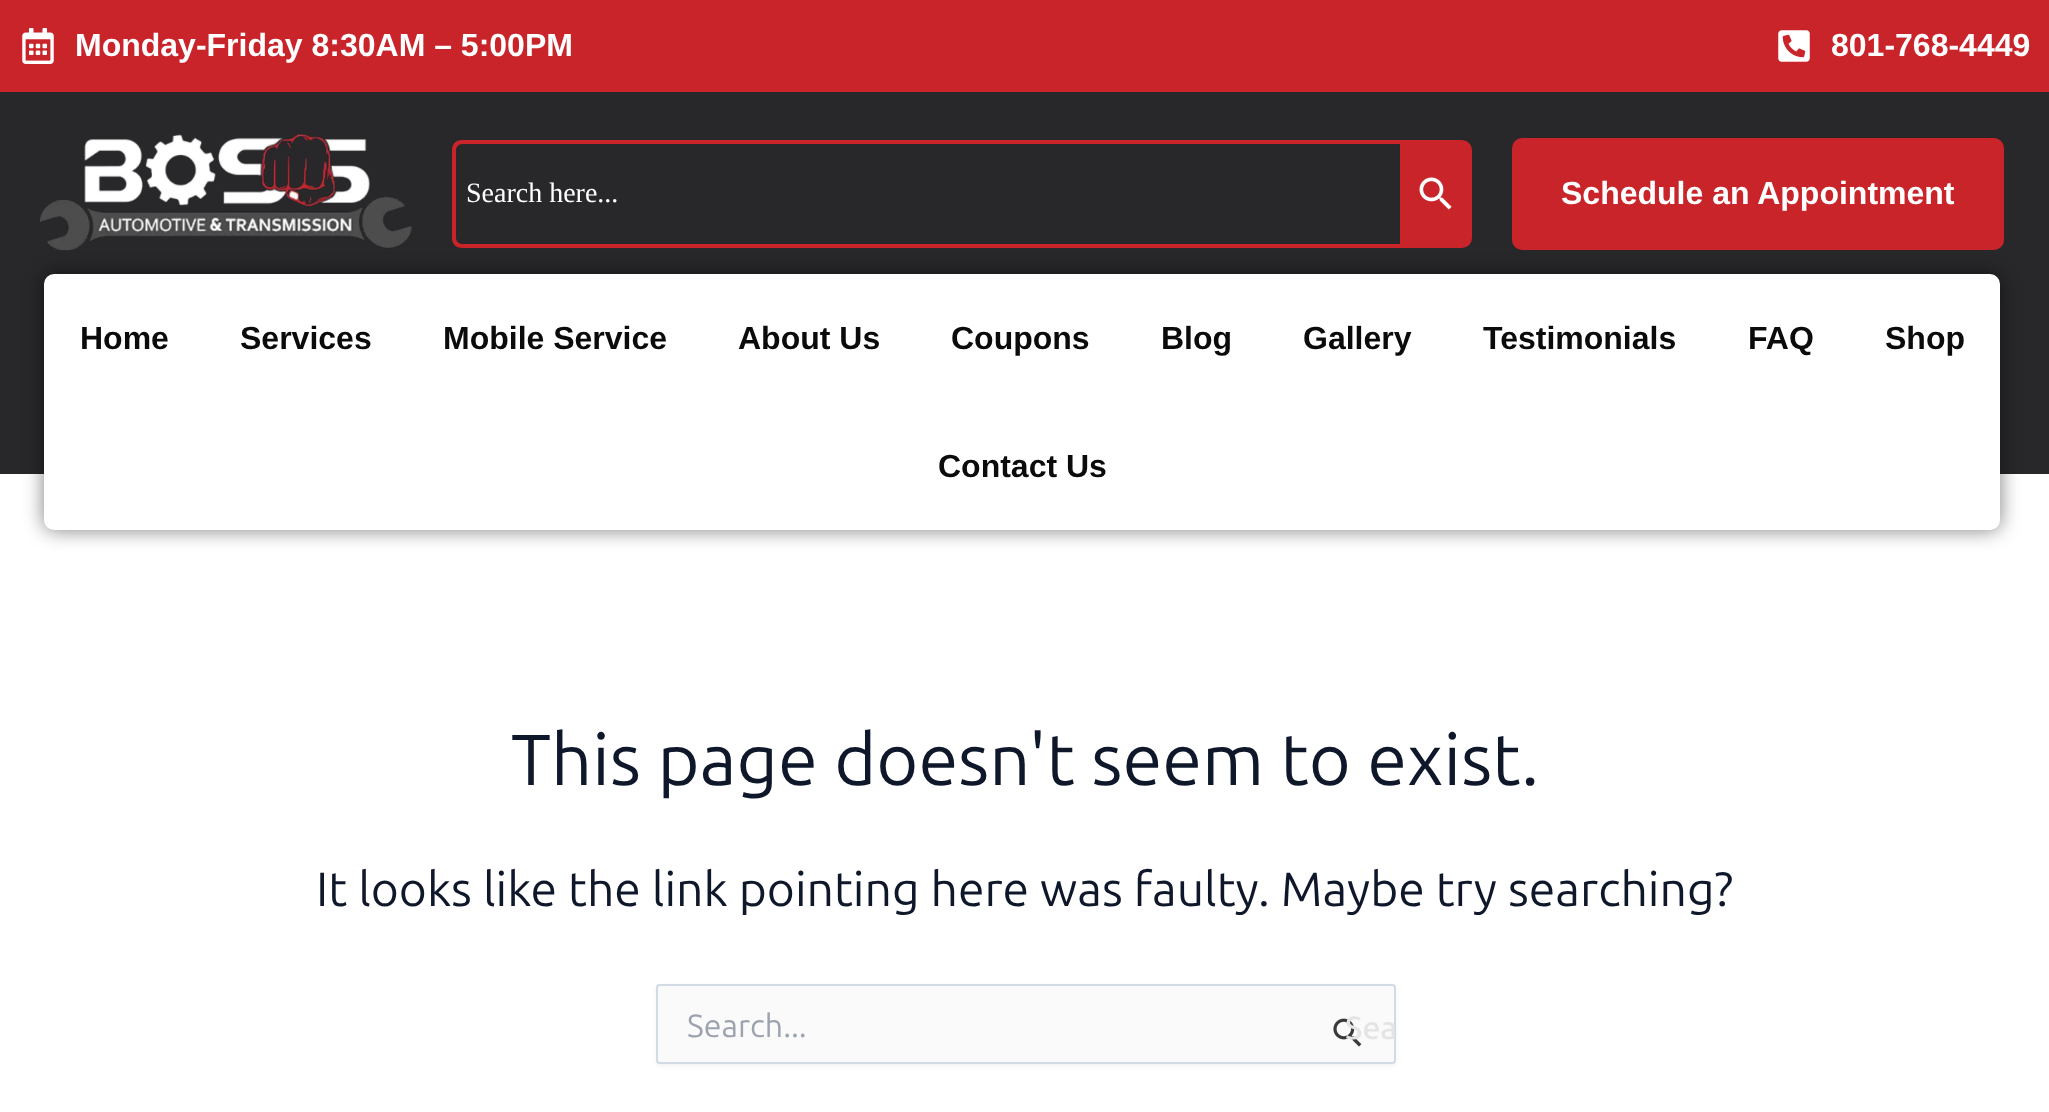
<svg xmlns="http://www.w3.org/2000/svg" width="2049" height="1112">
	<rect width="100%" height="100%" fill="#FFFFFF" />
	<rect x="0" y="0" width="2049" height="92" fill="#C9242A" />
	<image x="22" y="28" width="32" height="36" href="assets/img1.png" />
	<text x="75" y="56" font-family="Liberation Sans" font-size="32" font-weight="700" fill="#FFFFFF">Monday-Friday 8:30AM – 5:00PM</text>
	<image x="1778" y="30" width="32" height="32" href="assets/img2.png" />
	<text x="1831" y="56" font-family="Liberation Sans" font-size="32" font-weight="700" fill="#FFFFFF">801-768-4449</text>
	<rect x="0" y="92" width="2049" height="382" fill="#28272A" />
	<image x="40" y="134" width="372" height="117" href="assets/img3.png" />
	<path d="M462 140H1400V248H462C456 248 452 244 452 238V150C452 144 456 140 462 140ZM462 144H1400V244H462C459 244 456 241 456 238V150C456 147 459 144 462 144Z" fill="#C9242A" fill-rule="evenodd" />
	<text x="466" y="202" font-family="Liberation Serif" font-size="28" fill="#FFFFFF">Search here...</text>
	<path d="M1402 142H1462C1466.5 142 1470 145.5 1470 150V238C1470 242.5 1466.5 246 1462 246H1402Z" fill="#C9242A" stroke="#C9242A" stroke-width="4" />
	<image x="1419" y="177" width="33" height="33" href="assets/img4.png" />
	<rect x="1512" y="138" width="492" height="112" rx="10" fill="#C9242A" />
	<text x="1561" y="204" font-family="Liberation Sans" font-size="32" font-weight="700" fill="#FFFFFF">Schedule an Appointment</text>
	<rect x="44" y="274" width="1956" height="256" rx="10" fill="#000000" fill-opacity="0.5" filter="blur(10px)" />
	<rect x="44" y="274" width="1956" height="256" rx="10" fill="#FFFFFF" />
	<g font-family="Liberation Sans" font-size="32" font-weight="700" fill="#0B0B0B">
		<text x="80" y="349">Home</text>
		<text x="240" y="349">Services</text>
		<text x="443" y="349">Mobile Service</text>
		<text x="738" y="349">About Us</text>
		<text x="951" y="349">Coupons</text>
		<text x="1161" y="349">Blog</text>
		<text x="1303" y="349">Gallery</text>
		<text x="1483" y="349">Testimonials</text>
		<text x="1748" y="349">FAQ</text>
		<text x="1885" y="349">Shop</text>
		<text x="938" y="477">Contact Us</text>
	</g>
	<text x="511" y="785" font-family="Ubuntu" font-size="72" fill="#0F172A">This page doesn't seem to exist.</text>
	<text x="316" y="906" font-family="Ubuntu" font-size="48" fill="#0F172A">It looks like the link pointing here was faulty. Maybe try searching?</text>
	<rect x="656" y="986" width="740" height="80" rx="4" fill="#000000" fill-opacity="0.05" filter="blur(2px)" />
	<rect x="657" y="985" width="738" height="78" rx="3" fill="#FAFAFA" stroke="#D1DAE5" stroke-width="2" />
	<text x="687" y="1037" font-family="Ubuntu" font-size="32" fill="#9CA3AF">Search...</text>
	<image x="1333" y="1018" width="29" height="29" href="assets/img5.png" />
	<text x="1345" y="1039" font-family="Ubuntu" font-size="32" font-weight="500" fill="#E3E4E4">Sea</text>
</svg>
